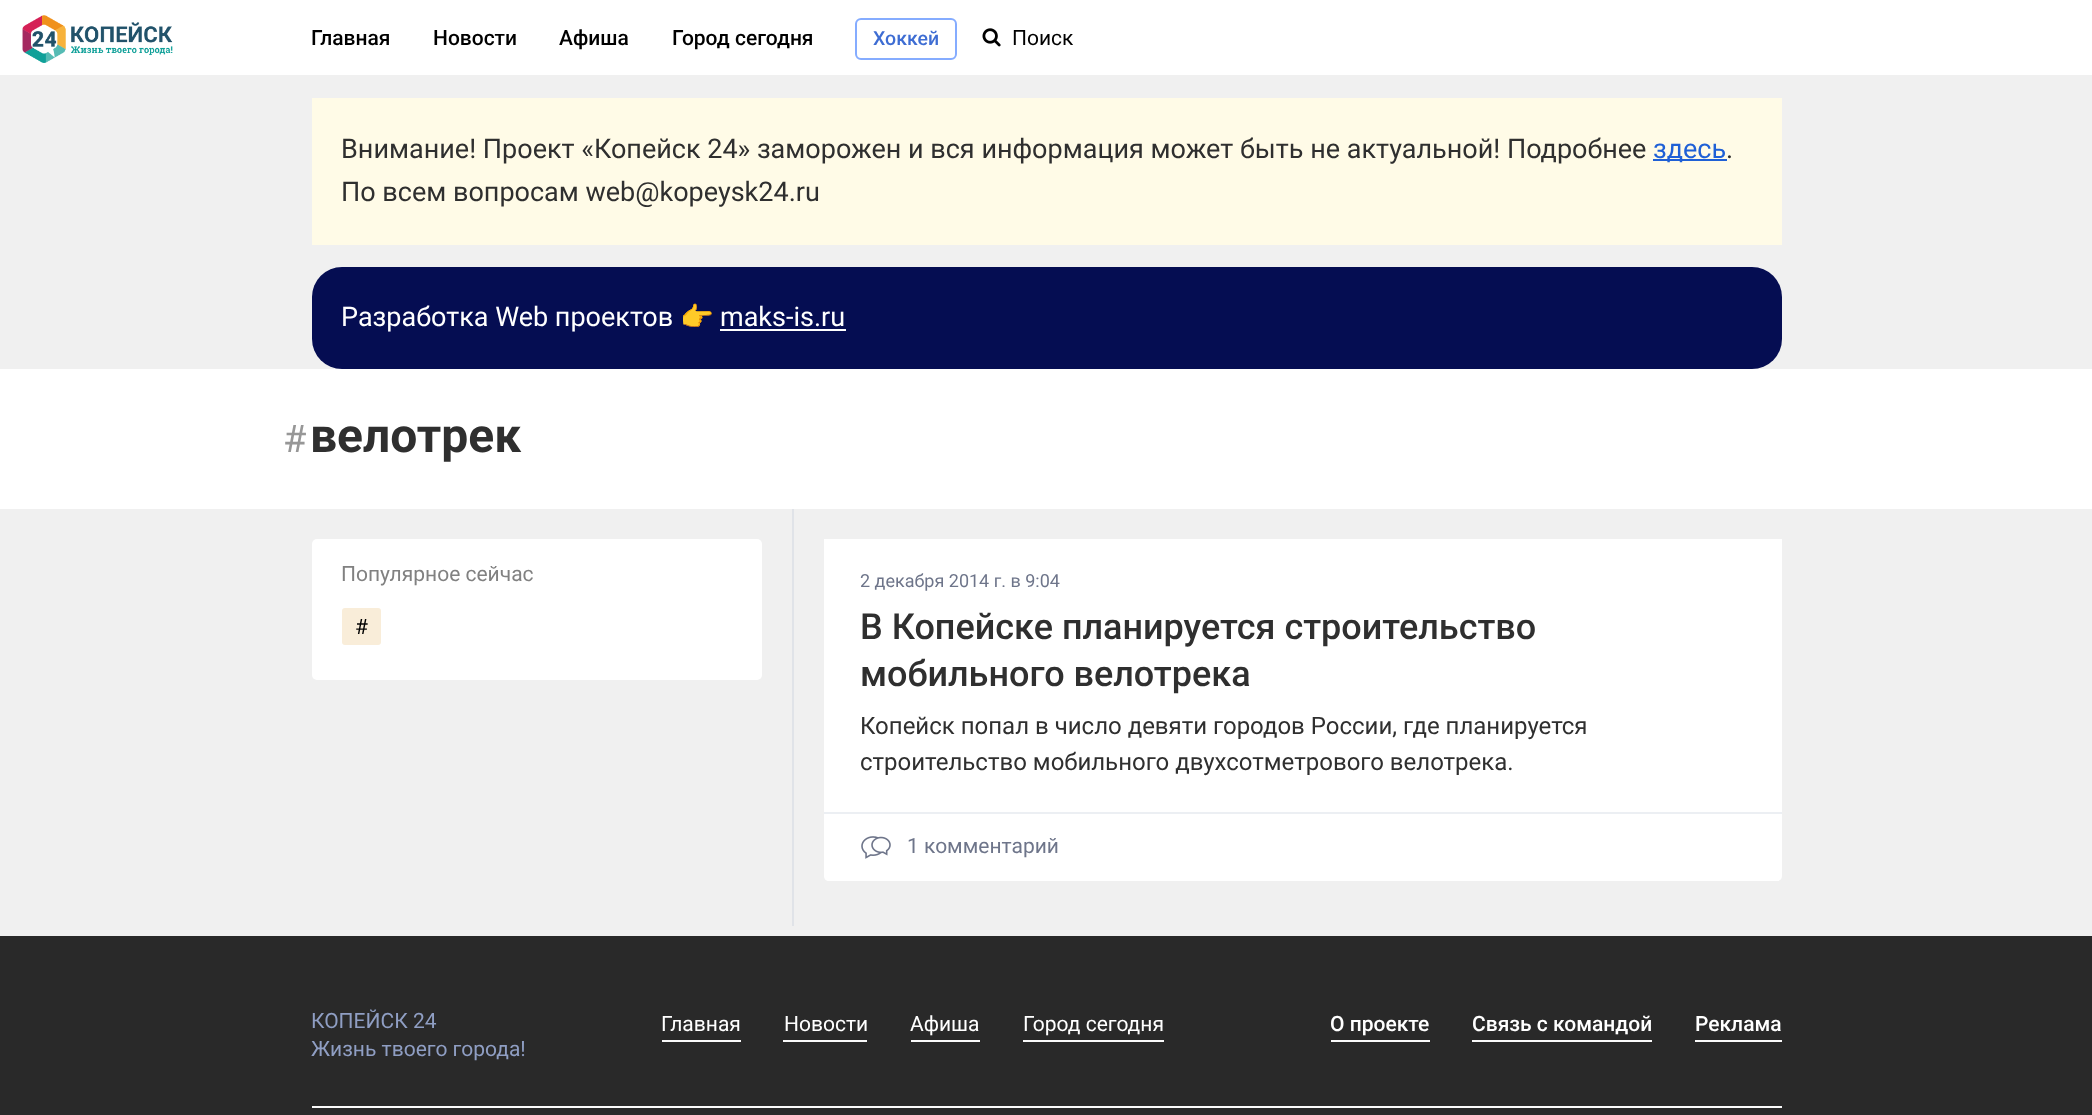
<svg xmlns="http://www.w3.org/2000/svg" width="2092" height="1115">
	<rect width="100%" height="100%" fill="#F0F0F0" />
	<rect x="0" y="0" width="2092" height="75" fill="#FFFFFF" />
	<image x="22" y="15" width="151" height="48" href="assets/img1.png" />
	<g font-family="Roboto" font-size="21" font-weight="500" fill="#000000">
		<text x="311" y="45">Главная</text>
		<text x="433" y="45">Новости</text>
		<text x="559" y="45">Афиша</text>
		<text x="672" y="45">Город сегодня</text>
	</g>
	<rect x="856" y="19" width="100" height="40" rx="5" fill="none" stroke="#85ACFF" stroke-width="2" />
	<text x="873" y="45" font-family="Roboto" font-size="19.5" font-weight="500" fill="#3E6DD3">Хоккей</text>
	<image x="982" y="28" width="19" height="19" href="assets/img2.png" />
	<text x="1012" y="45" font-family="Roboto" font-size="21" fill="#000000">Поиск</text>
	<rect x="312" y="98" width="1470" height="147" fill="#FFFBE7" />
	<text x="341" y="158" font-family="Roboto" font-size="27" fill="#2F2F2F">Внимание! Проект «Копейск 24» заморожен и вся информация может быть не актуальной! Подробнее</text>
	<rect x="1653" y="159" width="74" height="2" fill="#1F60D6" />
	<text x="1653" y="158" font-family="Roboto" font-size="27" fill="#1F60D6">здесь</text>
	<g font-family="Roboto" font-size="27" fill="#2F2F2F">
		<text x="1726" y="158">.</text>
		<text x="341" y="201">По всем вопросам web@kopeysk24.ru</text>
	</g>
	<rect x="312" y="267" width="1470" height="102" rx="30" fill="#050D52" />
	<text x="341" y="326" font-family="Roboto" font-size="27" fill="#FFFFFF">Разработка Web проектов</text>
	<text x="680" y="326" font-family="Noto Color Emoji" font-size="27" fill="#FFFFFF">👉</text>
	<text x="720" y="326" font-family="Roboto" font-size="27" fill="#FFFFFF">maks-is.ru</text>
	<rect x="720" y="329" width="126" height="2" fill="#FFFFFF" />
	<rect x="0" y="369" width="2092" height="140" fill="#FFFFFF" />
	<text x="283" y="452" font-family="Roboto" font-size="38" fill="#979797">#</text>
	<text x="310" y="452" font-family="Roboto" font-size="48" font-weight="700" fill="#2F2F2F">велотрек</text>
	<rect x="792" y="509" width="2" height="417" fill="#E0E3E8" />
	<rect x="312" y="539" width="450" height="141" rx="5" fill="#FFFFFF" />
	<text x="341" y="581" font-family="Roboto" font-size="21" fill="#818181">Популярное сейчас</text>
	<rect x="342" y="608" width="39" height="37" rx="3" fill="#F9EDD9" />
	<text x="355" y="634" font-family="Roboto" font-size="21" fill="#000000">#</text>
	<path d="M824 539H1782V876C1782 879 1780 881 1777 881H829C826 881 824 879 824 876Z" fill="#FFFFFF" />
	<text x="860" y="587" font-family="Roboto" font-size="18" fill="#6E758A">2 декабря 2014 г. в 9:04</text>
	<g font-family="Roboto" font-size="36" font-weight="500" fill="#2F2F2F">
		<text x="860" y="639">В Копейске планируется строительство</text>
		<text x="860" y="686">мобильного велотрека</text>
	</g>
	<g font-family="Roboto" font-size="24" fill="#2F2F2F">
		<text x="860" y="734">Копейск попал в число девяти городов России, где планируется</text>
		<text x="860" y="770">строительство мобильного двухсотметрового велотрека.</text>
	</g>
	<rect x="824" y="812" width="958" height="2" fill="#ECEFF3" />
	<image x="861" y="836" width="30" height="23" href="assets/img3.png" />
	<text x="907" y="853" font-family="Roboto" font-size="21" fill="#6E758A">1 комментарий</text>
	<rect x="0" y="936" width="2092" height="179" fill="#292929" />
	<rect x="312" y="1106" width="1470" height="2" fill="#FAFAFA" />
	<g font-family="Roboto" font-size="21" fill="#8F9EC3">
		<text x="311" y="1028">КОПЕЙСК 24</text>
		<text x="311" y="1056">Жизнь твоего города!</text>
	</g>
	<rect x="662" y="1040" width="79" height="2" fill="#FAFAFA" />
	<text x="661" y="1031" font-family="Roboto" font-size="21" fill="#FFFFFF">Главная</text>
	<rect x="783" y="1040" width="84" height="2" fill="#FAFAFA" />
	<text x="784" y="1031" font-family="Roboto" font-size="21" fill="#FFFFFF">Новости</text>
	<rect x="911" y="1040" width="69" height="2" fill="#FAFAFA" />
	<text x="910" y="1031" font-family="Roboto" font-size="21" fill="#FFFFFF">Афиша</text>
	<rect x="1023" y="1040" width="141" height="2" fill="#FAFAFA" />
	<text x="1023" y="1031" font-family="Roboto" font-size="21" fill="#FFFFFF">Город сегодня</text>
	<rect x="1331" y="1040" width="99" height="2" fill="#FAFAFA" />
	<text x="1330" y="1031" font-family="Roboto" font-size="21" font-weight="500" fill="#FFFFFF">О проекте</text>
	<rect x="1472" y="1040" width="180" height="2" fill="#FAFAFA" />
	<text x="1472" y="1031" font-family="Roboto" font-size="21" font-weight="500" fill="#FFFFFF">Связь с командой</text>
	<rect x="1695" y="1040" width="87" height="2" fill="#FAFAFA" />
	<text x="1695" y="1031" font-family="Roboto" font-size="21" font-weight="500" fill="#FFFFFF">Реклама</text>
</svg>
